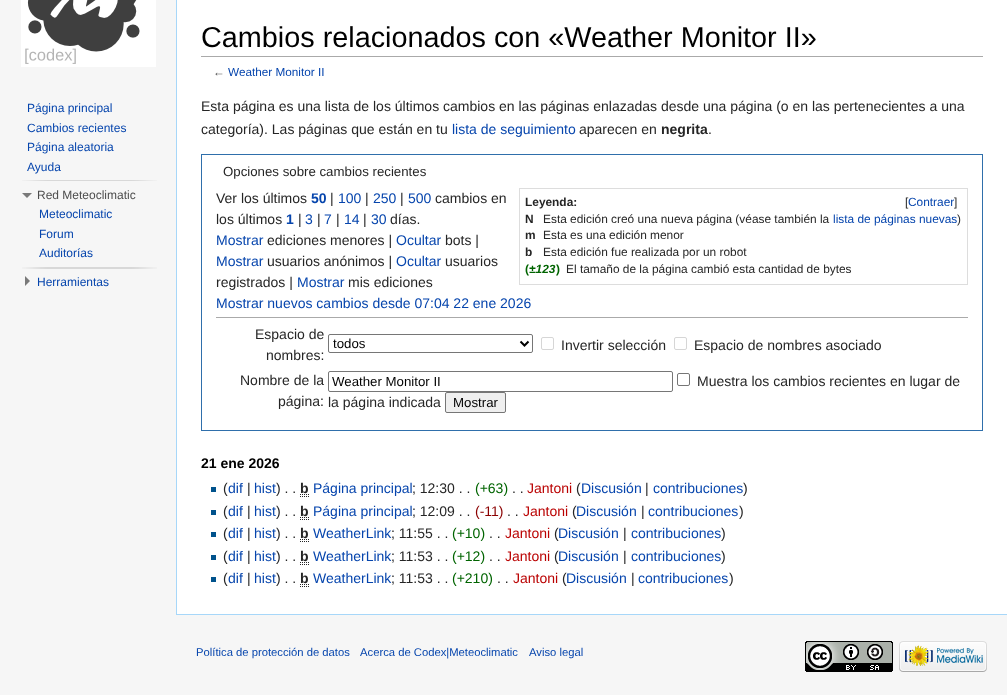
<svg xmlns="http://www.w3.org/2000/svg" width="1007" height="695">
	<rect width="100%" height="100%" fill="#F6F6F6" />
	<image x="21" y="0" width="135" height="67" href="assets/img1.png" />
	<g font-family="Liberation Sans" font-size="12" fill="#0645AD">
		<text x="27" y="112">Página principal</text>
		<text x="27" y="132">Cambios recientes</text>
		<text x="27" y="151">Página aleatoria</text>
		<text x="27" y="171">Ayuda</text>
	</g>
	<image x="22" y="180" width="135" height="1" href="assets/img2.png" />
	<path d="M32 193L27 198L22 193Z" fill="#797979" />
	<text x="37" y="199" font-family="Liberation Sans" font-size="12" fill="#4D4D4D">Red Meteoclimatic</text>
	<g font-family="Liberation Sans" font-size="12" fill="#0645AD">
		<text x="39" y="218">Meteoclimatic</text>
		<text x="39" y="238">Forum</text>
		<text x="39" y="257">Auditorías</text>
	</g>
	<image x="22" y="267" width="135" height="2" href="assets/img3.png" />
	<path d="M25 276L30 281L25 286Z" fill="#797979" />
	<text x="37" y="286" font-family="Liberation Sans" font-size="12" fill="#0645AD">Herramientas</text>
	<rect x="177" y="0" width="830" height="614" fill="#FFFFFF" />
	<rect x="176" y="614" width="831" height="1" fill="#A7D7F9" />
	<rect x="176" y="0" width="1" height="615" fill="#A7D7F9" />
	<rect x="201" y="56" width="782" height="1" fill="#AAAAAA" />
	<text x="201" y="47" font-family="Liberation Sans" font-size="28.8" fill="#000000">Cambios relacionados con «Weather Monitor II»</text>
	<text x="213" y="76" font-family="Liberation Sans" font-size="11.75" fill="#545454">←</text>
	<text x="228" y="76" font-family="Liberation Sans" font-size="11.75" fill="#0645AD">Weather Monitor II</text>
	<g font-family="Liberation Sans" font-size="14" fill="#252525">
		<text x="201" y="111">Esta página es una lista de los últimos cambios en las páginas enlazadas desde una página (o en las pertenecientes a una</text>
		<text x="201" y="134">categoría). Las páginas que están en tu</text>
	</g>
	<text x="452" y="134" font-family="Liberation Sans" font-size="14" fill="#0645AD">lista de seguimiento</text>
	<text x="579" y="134" font-family="Liberation Sans" font-size="14" fill="#252525">aparecen en</text>
	<text x="661" y="134" font-family="Liberation Sans" font-size="14" font-weight="700" fill="#252525">negrita</text>
	<text x="708" y="134" font-family="Liberation Sans" font-size="14" fill="#252525">.</text>
	<rect x="201.5" y="154.5" width="781" height="276" fill="none" stroke="#2F6FAB" />
	<text x="223" y="176" font-family="Liberation Sans" font-size="13.25" fill="#252525">Opciones sobre cambios recientes</text>
	<text x="216" y="203" font-family="Liberation Sans" font-size="14" fill="#252525">Ver los últimos</text>
	<text x="311" y="203" font-family="Liberation Sans" font-size="14" font-weight="700" fill="#0645AD">50</text>
	<text x="330" y="203" font-family="Liberation Sans" font-size="14" fill="#252525">|</text>
	<text x="338" y="203" font-family="Liberation Sans" font-size="14" fill="#0645AD">100</text>
	<text x="365" y="203" font-family="Liberation Sans" font-size="14" fill="#252525">|</text>
	<text x="373" y="203" font-family="Liberation Sans" font-size="14" fill="#0645AD">250</text>
	<text x="400" y="203" font-family="Liberation Sans" font-size="14" fill="#252525">|</text>
	<text x="408" y="203" font-family="Liberation Sans" font-size="14" fill="#0645AD">500</text>
	<text x="435" y="203" font-family="Liberation Sans" font-size="14" fill="#252525">cambios en</text>
	<rect x="519.5" y="188.5" width="448" height="96" fill="none" stroke="#DDDDDD" />
	<text x="525" y="206" font-family="Liberation Sans" font-size="11.9" font-weight="700" fill="#252525">Leyenda:</text>
	<text x="905" y="206" font-family="Liberation Sans" font-size="11.9" fill="#252525">[</text>
	<text x="908" y="206" font-family="Liberation Sans" font-size="11.9" fill="#0645AD">Contraer</text>
	<text x="954" y="206" font-family="Liberation Sans" font-size="11.9" fill="#252525">]</text>
	<text x="525" y="223" font-family="Liberation Sans" font-size="11.9" font-weight="700" fill="#252525">N</text>
	<text x="543" y="223" font-family="Liberation Sans" font-size="11.9" fill="#252525">Esta edición creó una nueva página (véase también la</text>
	<text x="833" y="223" font-family="Liberation Sans" font-size="11.9" fill="#0645AD">lista de páginas nuevas</text>
	<text x="957" y="223" font-family="Liberation Sans" font-size="11.9" fill="#252525">)</text>
	<text x="525" y="239" font-family="Liberation Sans" font-size="11.9" font-weight="700" fill="#252525">m</text>
	<text x="543" y="239" font-family="Liberation Sans" font-size="11.9" fill="#252525">Esta es una edición menor</text>
	<text x="525" y="256" font-family="Liberation Sans" font-size="11.9" font-weight="700" fill="#252525">b</text>
	<text x="543" y="256" font-family="Liberation Sans" font-size="11.9" fill="#252525">Esta edición fue realizada por un robot</text>
	<text x="525" y="273" font-family="Liberation Sans" font-size="11.9" font-weight="700" fill="#006400">(</text>
	<text x="529" y="273" font-family="Liberation Sans" font-size="11.9" font-weight="700" font-style="italic" fill="#006400">±123</text>
	<text x="556" y="273" font-family="Liberation Sans" font-size="11.9" font-weight="700" fill="#006400">)</text>
	<text x="566" y="273" font-family="Liberation Sans" font-size="11.9" fill="#252525">El tamaño de la página cambió esta cantidad de bytes</text>
	<text x="216" y="224" font-family="Liberation Sans" font-size="14" fill="#252525">los últimos</text>
	<text x="286" y="224" font-family="Liberation Sans" font-size="14" font-weight="700" fill="#0645AD">1</text>
	<text x="298" y="224" font-family="Liberation Sans" font-size="14" fill="#252525">|</text>
	<text x="305" y="224" font-family="Liberation Sans" font-size="14" fill="#0645AD">3</text>
	<text x="317" y="224" font-family="Liberation Sans" font-size="14" fill="#252525">|</text>
	<text x="324" y="224" font-family="Liberation Sans" font-size="14" fill="#0645AD">7</text>
	<text x="336" y="224" font-family="Liberation Sans" font-size="14" fill="#252525">|</text>
	<text x="344" y="224" font-family="Liberation Sans" font-size="14" fill="#0645AD">14</text>
	<text x="363" y="224" font-family="Liberation Sans" font-size="14" fill="#252525">|</text>
	<text x="371" y="224" font-family="Liberation Sans" font-size="14" fill="#0645AD">30</text>
	<text x="390" y="224" font-family="Liberation Sans" font-size="14" fill="#252525">días.</text>
	<text x="216" y="245" font-family="Liberation Sans" font-size="14" fill="#0645AD">Mostrar</text>
	<text x="267" y="245" font-family="Liberation Sans" font-size="14" fill="#252525">ediciones menores |</text>
	<text x="396" y="245" font-family="Liberation Sans" font-size="14" fill="#0645AD">Ocultar</text>
	<text x="445" y="245" font-family="Liberation Sans" font-size="14" fill="#252525">bots |</text>
	<text x="216" y="266" font-family="Liberation Sans" font-size="14" fill="#0645AD">Mostrar</text>
	<text x="267" y="266" font-family="Liberation Sans" font-size="14" fill="#252525">usuarios anónimos |</text>
	<text x="396" y="266" font-family="Liberation Sans" font-size="14" fill="#0645AD">Ocultar</text>
	<g font-family="Liberation Sans" font-size="14" fill="#252525">
		<text x="445" y="266">usuarios</text>
		<text x="216" y="287">registrados |</text>
	</g>
	<text x="297" y="287" font-family="Liberation Sans" font-size="14" fill="#0645AD">Mostrar</text>
	<text x="348" y="287" font-family="Liberation Sans" font-size="14" fill="#252525">mis ediciones</text>
	<text x="216" y="308" font-family="Liberation Sans" font-size="14" fill="#0645AD">Mostrar nuevos cambios desde 07:04 22 ene 2026</text>
	<rect x="216" y="317" width="752" height="1" fill="#AAAAAA" />
	<g font-family="Liberation Sans" font-size="14" fill="#252525">
		<text x="255" y="339">Espacio de</text>
		<text x="266" y="360">nombres:</text>
	</g>
	<rect x="328.5" y="334.5" width="204" height="18" rx="1.5" fill="none" stroke="#767676" />
	<path d="M520.5 341.5L524.5 345.5L528.5 341.5" fill="none" stroke="#000000" stroke-width="2" />
	<text x="333" y="348" font-family="Liberation Sans" font-size="13.25" fill="#000000">todos</text>
	<rect x="541.5" y="337.5" width="12" height="12" rx="1.5" fill="none" stroke="#D6D6D6" />
	<text x="561" y="350" font-family="Liberation Sans" font-size="14" fill="#252525">Invertir selección</text>
	<rect x="674.5" y="337.5" width="12" height="12" rx="1.5" fill="none" stroke="#D6D6D6" />
	<g font-family="Liberation Sans" font-size="14" fill="#252525">
		<text x="694" y="350">Espacio de nombres asociado</text>
		<text x="240" y="385">Nombre de la</text>
		<text x="278" y="406">página:</text>
	</g>
	<rect x="328.5" y="371.5" width="344" height="20" rx="1.5" fill="none" stroke="#767676" />
	<text x="332" y="386" font-family="Liberation Sans" font-size="13.25" fill="#000000">Weather Monitor II</text>
	<rect x="677.5" y="373.5" width="12" height="12" rx="1.5" fill="none" stroke="#767676" />
	<g font-family="Liberation Sans" font-size="14" fill="#252525">
		<text x="697" y="386">Muestra los cambios recientes en lugar de</text>
		<text x="328" y="407">la página indicada</text>
	</g>
	<rect x="445.5" y="392.5" width="60" height="20" rx="1.5" fill="#EFEFEF" stroke="#767676" />
	<text x="453" y="407" font-family="Liberation Sans" font-size="13.25" fill="#000000">Mostrar</text>
	<text x="201" y="468" font-family="Liberation Sans" font-size="14" font-weight="700" fill="#000000">21 ene 2026</text>
	<rect x="211" y="487" width="5" height="5" fill="#00528C" />
	<text x="223" y="493" font-family="Liberation Sans" font-size="14" fill="#252525">(</text>
	<text x="228" y="493" font-family="Liberation Sans" font-size="14" fill="#0645AD">dif</text>
	<text x="247" y="493" font-family="Liberation Sans" font-size="14" fill="#252525">|</text>
	<text x="254" y="493" font-family="Liberation Sans" font-size="14" fill="#0645AD">hist</text>
	<text x="276" y="493" font-family="Liberation Sans" font-size="14" fill="#252525">) . .</text>
	<text x="300" y="493" font-family="Liberation Sans" font-size="14" font-weight="700" fill="#252525">b</text>
	<path d="M300 496.5H309M300 494.5H309" fill="none" stroke="#252525" stroke-dasharray="1 1" />
	<text x="313" y="493" font-family="Liberation Sans" font-size="14" fill="#0645AD">Página principal</text>
	<text x="412" y="493" font-family="Liberation Sans" font-size="14" fill="#252525">; 12:30 . .</text>
	<text x="475" y="493" font-family="Liberation Sans" font-size="14" fill="#006400">(+63)</text>
	<text x="512" y="493" font-family="Liberation Sans" font-size="14" fill="#252525">. .</text>
	<text x="527" y="493" font-family="Liberation Sans" font-size="14" fill="#BA0000">Jantoni</text>
	<text x="576" y="493" font-family="Liberation Sans" font-size="14" fill="#252525">(</text>
	<text x="581" y="493" font-family="Liberation Sans" font-size="14" fill="#0645AD">Discusión</text>
	<text x="645" y="493" font-family="Liberation Sans" font-size="14" fill="#252525">|</text>
	<text x="653" y="493" font-family="Liberation Sans" font-size="14" fill="#0645AD">contribuciones</text>
	<text x="743" y="493" font-family="Liberation Sans" font-size="14" fill="#252525">)</text>
	<rect x="211" y="510" width="5" height="5" fill="#00528C" />
	<text x="223" y="516" font-family="Liberation Sans" font-size="14" fill="#252525">(</text>
	<text x="228" y="516" font-family="Liberation Sans" font-size="14" fill="#0645AD">dif</text>
	<text x="247" y="516" font-family="Liberation Sans" font-size="14" fill="#252525">|</text>
	<text x="254" y="516" font-family="Liberation Sans" font-size="14" fill="#0645AD">hist</text>
	<text x="276" y="516" font-family="Liberation Sans" font-size="14" fill="#252525">) . .</text>
	<text x="300" y="516" font-family="Liberation Sans" font-size="14" font-weight="700" fill="#252525">b</text>
	<path d="M300 519.5H309M300 517.5H309" fill="none" stroke="#252525" stroke-dasharray="1 1" />
	<text x="313" y="516" font-family="Liberation Sans" font-size="14" fill="#0645AD">Página principal</text>
	<text x="412" y="516" font-family="Liberation Sans" font-size="14" fill="#252525">; 12:09 . .</text>
	<text x="475" y="516" font-family="Liberation Sans" font-size="14" fill="#8B0000">(-11)</text>
	<text x="507" y="516" font-family="Liberation Sans" font-size="14" fill="#252525">. .</text>
	<text x="523" y="516" font-family="Liberation Sans" font-size="14" fill="#BA0000">Jantoni</text>
	<text x="572" y="516" font-family="Liberation Sans" font-size="14" fill="#252525">(</text>
	<text x="576" y="516" font-family="Liberation Sans" font-size="14" fill="#0645AD">Discusión</text>
	<text x="641" y="516" font-family="Liberation Sans" font-size="14" fill="#252525">|</text>
	<text x="648" y="516" font-family="Liberation Sans" font-size="14" fill="#0645AD">contribuciones</text>
	<text x="739" y="516" font-family="Liberation Sans" font-size="14" fill="#252525">)</text>
	<rect x="211" y="532" width="5" height="5" fill="#00528C" />
	<text x="223" y="538" font-family="Liberation Sans" font-size="14" fill="#252525">(</text>
	<text x="228" y="538" font-family="Liberation Sans" font-size="14" fill="#0645AD">dif</text>
	<text x="247" y="538" font-family="Liberation Sans" font-size="14" fill="#252525">|</text>
	<text x="254" y="538" font-family="Liberation Sans" font-size="14" fill="#0645AD">hist</text>
	<text x="276" y="538" font-family="Liberation Sans" font-size="14" fill="#252525">) . .</text>
	<text x="300" y="538" font-family="Liberation Sans" font-size="14" font-weight="700" fill="#252525">b</text>
	<path d="M300 541.5H309M300 539.5H309" fill="none" stroke="#252525" stroke-dasharray="1 1" />
	<text x="313" y="538" font-family="Liberation Sans" font-size="14" fill="#0645AD">WeatherLink</text>
	<text x="391" y="538" font-family="Liberation Sans" font-size="14" fill="#252525">; 11:55 . .</text>
	<text x="452" y="538" font-family="Liberation Sans" font-size="14" fill="#006400">(+10)</text>
	<text x="489" y="538" font-family="Liberation Sans" font-size="14" fill="#252525">. .</text>
	<text x="505" y="538" font-family="Liberation Sans" font-size="14" fill="#BA0000">Jantoni</text>
	<text x="554" y="538" font-family="Liberation Sans" font-size="14" fill="#252525">(</text>
	<text x="558" y="538" font-family="Liberation Sans" font-size="14" fill="#0645AD">Discusión</text>
	<text x="623" y="538" font-family="Liberation Sans" font-size="14" fill="#252525">|</text>
	<text x="631" y="538" font-family="Liberation Sans" font-size="14" fill="#0645AD">contribuciones</text>
	<text x="721" y="538" font-family="Liberation Sans" font-size="14" fill="#252525">)</text>
	<rect x="211" y="555" width="5" height="5" fill="#00528C" />
	<text x="223" y="561" font-family="Liberation Sans" font-size="14" fill="#252525">(</text>
	<text x="228" y="561" font-family="Liberation Sans" font-size="14" fill="#0645AD">dif</text>
	<text x="247" y="561" font-family="Liberation Sans" font-size="14" fill="#252525">|</text>
	<text x="254" y="561" font-family="Liberation Sans" font-size="14" fill="#0645AD">hist</text>
	<text x="276" y="561" font-family="Liberation Sans" font-size="14" fill="#252525">) . .</text>
	<text x="300" y="561" font-family="Liberation Sans" font-size="14" font-weight="700" fill="#252525">b</text>
	<path d="M300 564.5H309M300 562.5H309" fill="none" stroke="#252525" stroke-dasharray="1 1" />
	<text x="313" y="561" font-family="Liberation Sans" font-size="14" fill="#0645AD">WeatherLink</text>
	<text x="391" y="561" font-family="Liberation Sans" font-size="14" fill="#252525">; 11:53 . .</text>
	<text x="452" y="561" font-family="Liberation Sans" font-size="14" fill="#006400">(+12)</text>
	<text x="489" y="561" font-family="Liberation Sans" font-size="14" fill="#252525">. .</text>
	<text x="505" y="561" font-family="Liberation Sans" font-size="14" fill="#BA0000">Jantoni</text>
	<text x="554" y="561" font-family="Liberation Sans" font-size="14" fill="#252525">(</text>
	<text x="558" y="561" font-family="Liberation Sans" font-size="14" fill="#0645AD">Discusión</text>
	<text x="623" y="561" font-family="Liberation Sans" font-size="14" fill="#252525">|</text>
	<text x="631" y="561" font-family="Liberation Sans" font-size="14" fill="#0645AD">contribuciones</text>
	<text x="721" y="561" font-family="Liberation Sans" font-size="14" fill="#252525">)</text>
	<rect x="211" y="577" width="5" height="5" fill="#00528C" />
	<text x="223" y="583" font-family="Liberation Sans" font-size="14" fill="#252525">(</text>
	<text x="228" y="583" font-family="Liberation Sans" font-size="14" fill="#0645AD">dif</text>
	<text x="247" y="583" font-family="Liberation Sans" font-size="14" fill="#252525">|</text>
	<text x="254" y="583" font-family="Liberation Sans" font-size="14" fill="#0645AD">hist</text>
	<text x="276" y="583" font-family="Liberation Sans" font-size="14" fill="#252525">) . .</text>
	<text x="300" y="583" font-family="Liberation Sans" font-size="14" font-weight="700" fill="#252525">b</text>
	<path d="M300 586.5H309M300 584.5H309" fill="none" stroke="#252525" stroke-dasharray="1 1" />
	<text x="313" y="583" font-family="Liberation Sans" font-size="14" fill="#0645AD">WeatherLink</text>
	<text x="391" y="583" font-family="Liberation Sans" font-size="14" fill="#252525">; 11:53 . .</text>
	<text x="452" y="583" font-family="Liberation Sans" font-size="14" fill="#006400">(+210)</text>
	<text x="497" y="583" font-family="Liberation Sans" font-size="14" fill="#252525">. .</text>
	<text x="513" y="583" font-family="Liberation Sans" font-size="14" fill="#BA0000">Jantoni</text>
	<text x="562" y="583" font-family="Liberation Sans" font-size="14" fill="#252525">(</text>
	<text x="566" y="583" font-family="Liberation Sans" font-size="14" fill="#0645AD">Discusión</text>
	<text x="631" y="583" font-family="Liberation Sans" font-size="14" fill="#252525">|</text>
	<text x="638" y="583" font-family="Liberation Sans" font-size="14" fill="#0645AD">contribuciones</text>
	<text x="729" y="583" font-family="Liberation Sans" font-size="14" fill="#252525">)</text>
	<g font-family="Liberation Sans" font-size="11.25" fill="#0645AD">
		<text x="196" y="656">Política de protección de datos</text>
		<text x="360" y="656">Acerca de Codex|Meteoclimatic</text>
		<text x="529" y="656">Aviso legal</text>
	</g>
	<image x="805" y="641" width="88" height="31" href="assets/img4.png" />
	<image x="899" y="641" width="88" height="31" href="assets/img5.png" />
</svg>
